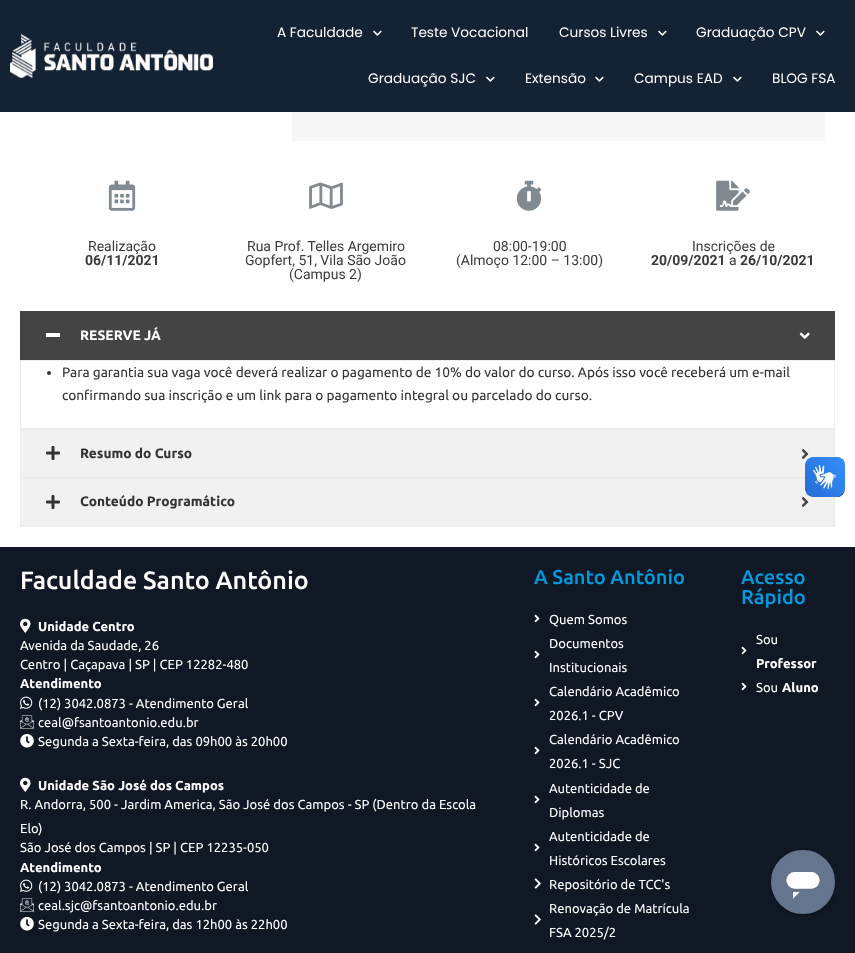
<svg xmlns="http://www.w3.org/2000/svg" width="855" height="953">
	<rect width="100%" height="100%" fill="#FFFFFF" />
	<rect x="0" y="0" width="855" height="112" fill="#142333" />
	<image x="10" y="34" width="203" height="44" href="assets/img1.png" />
	<text x="277" y="37" font-family="Poppins" font-size="13.68" fill="#FFFFFF">A Faculdade</text>
	<image x="373" y="30" width="9" height="6" href="assets/img2.png" />
	<g font-family="Poppins" font-size="13.68" fill="#FFFFFF">
		<text x="411" y="37">Teste Vocacional</text>
		<text x="559" y="37">Cursos Livres</text>
	</g>
	<image x="658" y="30" width="9" height="6" href="assets/img2.png" />
	<text x="696" y="37" font-family="Poppins" font-size="13.68" fill="#FFFFFF">Graduação CPV</text>
	<image x="816" y="30" width="9" height="6" href="assets/img2.png" />
	<text x="368" y="83" font-family="Poppins" font-size="13.68" fill="#FFFFFF">Graduação SJC</text>
	<image x="486" y="76" width="9" height="6" href="assets/img2.png" />
	<text x="525" y="83" font-family="Poppins" font-size="13.68" fill="#FFFFFF">Extensão</text>
	<image x="595" y="76" width="9" height="6" href="assets/img2.png" />
	<text x="634" y="83" font-family="Poppins" font-size="13.68" fill="#FFFFFF">Campus EAD</text>
	<image x="733" y="76" width="9" height="6" href="assets/img2.png" />
	<text x="772" y="83" font-family="Poppins" font-size="13.68" fill="#FFFFFF">BLOG FSA</text>
	<rect x="292" y="112" width="533" height="29" fill="#F7F7F7" />
	<image x="108" y="180" width="28" height="31" href="assets/img3.png" />
	<text x="88" y="251" font-family="Roboto" font-size="14" fill="#3A3A3A">Realização</text>
	<text x="85" y="265" font-family="Roboto" font-size="14" font-weight="700" fill="#3A3A3A">06/11/2021</text>
	<image x="309" y="182" width="34" height="27" href="assets/img4.png" />
	<g font-family="Roboto" font-size="14" fill="#3A3A3A">
		<text x="247" y="251">Rua Prof. Telles Argemiro</text>
		<text x="245" y="265">Gopfert, 51, Vila São João</text>
		<text x="289" y="279">(Campus 2)</text>
	</g>
	<image x="516" y="180" width="26" height="31" href="assets/img5.png" />
	<g font-family="Roboto" font-size="14" fill="#3A3A3A">
		<text x="493" y="251">08:00-19:00</text>
		<text x="456" y="265">(Almoço 12:00 – 13:00)</text>
	</g>
	<image x="716" y="180" width="34" height="31" href="assets/img6.png" />
	<text x="692" y="251" font-family="Roboto" font-size="14" fill="#3A3A3A">Inscrições de</text>
	<text x="651" y="265" font-family="Roboto" font-size="14" font-weight="700" fill="#3A3A3A">20/09/2021</text>
	<text x="729" y="265" font-family="Roboto" font-size="14" fill="#3A3A3A">a</text>
	<text x="740" y="265" font-family="Roboto" font-size="14" font-weight="700" fill="#3A3A3A">26/10/2021</text>
	<rect x="20" y="311" width="815" height="49" fill="#444444" />
	<rect x="46" y="333" width="14" height="4" fill="#FFFFFF" />
	<text x="80" y="340" font-family="Ubuntu" font-size="13.68" font-weight="700" fill="#FFFFFF">RESERVE JÁ</text>
	<image x="799" y="332" width="11" height="7" href="assets/img7.png" />
	<rect x="20.5" y="360.5" width="814" height="68" fill="none" stroke="#EEEEEE" />
	<circle cx="49" cy="373" r="2" fill="#333333" />
	<g font-family="Ubuntu" font-size="13.68" fill="#333333">
		<text x="62" y="377">Para garantia sua vaga você deverá realizar o pagamento de 10% do valor do curso. Após isso você receberá um e-mail</text>
		<text x="62" y="400">confirmando sua inscrição e um link para o pagamento integral ou parcelado do curso.</text>
	</g>
	<rect x="20.5" y="429.5" width="814" height="48" fill="#F1F1F1" stroke="#ECECEC" />
	<image x="46" y="446" width="14" height="14" href="assets/img8.png" />
	<text x="80" y="458" font-family="Ubuntu" font-size="13.68" font-weight="700" fill="#333333">Resumo do Curso</text>
	<image x="801" y="449" width="8" height="10" href="assets/img9.png" />
	<rect x="20.5" y="478.5" width="814" height="48" fill="#F1F1F1" stroke="#ECECEC" />
	<image x="46" y="495" width="14" height="14" href="assets/img8.png" />
	<text x="80" y="506" font-family="Ubuntu" font-size="13.68" font-weight="700" fill="#333333">Conteúdo Programático</text>
	<image x="801" y="497" width="8" height="10" href="assets/img9.png" />
	<rect x="0" y="547" width="855" height="406" fill="#101825" />
	<text x="20" y="589" font-family="Ubuntu" font-size="25" font-weight="500" fill="#FFFFFF">Faculdade Santo Antônio</text>
	<image x="20" y="618" width="11" height="15" href="assets/img10.png" />
	<text x="38" y="631" font-family="Ubuntu" font-size="13" font-weight="700" fill="#FFFFFF">Unidade Centro</text>
	<g font-family="Ubuntu" font-size="13" fill="#FFFFFF">
		<text x="20" y="650">Avenida da Saudade, 26</text>
		<text x="20" y="669">Centro | Caçapava | SP | CEP 12282-480</text>
	</g>
	<text x="20" y="688" font-family="Ubuntu" font-size="13" font-weight="700" fill="#FFFFFF">Atendimento</text>
	<image x="20" y="696" width="13" height="13" href="assets/img11.png" />
	<text x="38" y="708" font-family="Ubuntu" font-size="13" fill="#FFFFFF">(12) 3042.0873 - Atendimento Geral</text>
	<image x="20" y="715" width="14" height="14" href="assets/img12.png" />
	<text x="38" y="727" font-family="Ubuntu" font-size="13" fill="#FFFFFF">ceal@fsantoantonio.edu.br</text>
	<image x="20" y="734" width="14" height="14" href="assets/img13.png" />
	<text x="38" y="746" font-family="Ubuntu" font-size="13" fill="#FFFFFF">Segunda a Sexta-feira, das 09h00 às 20h00</text>
	<image x="20" y="777" width="11" height="15" href="assets/img10.png" />
	<text x="38" y="790" font-family="Ubuntu" font-size="13" font-weight="700" fill="#FFFFFF">Unidade São José dos Campos</text>
	<g font-family="Ubuntu" font-size="13" fill="#FFFFFF">
		<text x="20" y="809">R. Andorra, 500 - Jardim America, São José dos Campos - SP (Dentro da Escola</text>
		<text x="20" y="833">Elo)</text>
		<text x="20" y="852">São José dos Campos | SP | CEP 12235-050</text>
	</g>
	<text x="20" y="872" font-family="Ubuntu" font-size="13" font-weight="700" fill="#FFFFFF">Atendimento</text>
	<image x="20" y="879" width="13" height="13" href="assets/img11.png" />
	<text x="38" y="891" font-family="Ubuntu" font-size="13" fill="#FFFFFF">(12) 3042.0873 - Atendimento Geral</text>
	<image x="20" y="898" width="14" height="14" href="assets/img12.png" />
	<text x="38" y="910" font-family="Ubuntu" font-size="13" fill="#FFFFFF">ceal.sjc@fsantoantonio.edu.br</text>
	<image x="20" y="917" width="14" height="14" href="assets/img13.png" />
	<text x="38" y="929" font-family="Ubuntu" font-size="13" fill="#FFFFFF">Segunda a Sexta-feira, das 12h00 às 22h00</text>
	<text x="534" y="584" font-family="Ubuntu" font-size="20" font-weight="500" fill="#009BDF">A Santo Antônio</text>
	<image x="534" y="614" width="6" height="9" href="assets/img14.png" />
	<text x="549" y="624" font-family="Ubuntu" font-size="13" fill="#FFFFFF">Quem Somos</text>
	<image x="534" y="650" width="6" height="9" href="assets/img14.png" />
	<g font-family="Ubuntu" font-size="13" fill="#FFFFFF">
		<text x="549" y="648">Documentos</text>
		<text x="549" y="672">Institucionais</text>
	</g>
	<image x="534" y="698" width="6" height="9" href="assets/img14.png" />
	<g font-family="Ubuntu" font-size="13" fill="#FFFFFF">
		<text x="549" y="696">Calendário Acadêmico</text>
		<text x="549" y="720">2026.1 - CPV</text>
	</g>
	<image x="534" y="746" width="6" height="9" href="assets/img14.png" />
	<g font-family="Ubuntu" font-size="13" fill="#FFFFFF">
		<text x="549" y="744">Calendário Acadêmico</text>
		<text x="549" y="768">2026.1 - SJC</text>
	</g>
	<image x="534" y="795" width="6" height="9" href="assets/img14.png" />
	<g font-family="Ubuntu" font-size="13" fill="#FFFFFF">
		<text x="549" y="793">Autenticidade de</text>
		<text x="549" y="817">Diplomas</text>
	</g>
	<image x="534" y="843" width="6" height="9" href="assets/img14.png" />
	<g font-family="Ubuntu" font-size="13" fill="#FFFFFF">
		<text x="549" y="841">Autenticidade de</text>
		<text x="549" y="865">Históricos Escolares</text>
	</g>
	<image x="534" y="878" width="7" height="11" href="assets/img15.png" />
	<text x="549" y="889" font-family="Ubuntu" font-size="13" fill="#FFFFFF">Repositório de TCC's</text>
	<image x="534" y="914" width="7" height="11" href="assets/img15.png" />
	<g font-family="Ubuntu" font-size="13" fill="#FFFFFF">
		<text x="549" y="913">Renovação de Matrícula</text>
		<text x="549" y="937">FSA 2025/2</text>
	</g>
	<g font-family="Ubuntu" font-size="20" font-weight="500" fill="#009BDF">
		<text x="741" y="584">Acesso</text>
		<text x="741" y="604">Rápido</text>
	</g>
	<image x="741" y="646" width="6" height="9" href="assets/img14.png" />
	<text x="756" y="644" font-family="Ubuntu" font-size="13" fill="#FFFFFF">Sou</text>
	<text x="756" y="668" font-family="Ubuntu" font-size="13" font-weight="700" fill="#FFFFFF">Professor</text>
	<image x="741" y="682" width="6" height="9" href="assets/img14.png" />
	<text x="756" y="692" font-family="Ubuntu" font-size="13" fill="#FFFFFF">Sou</text>
	<text x="782" y="692" font-family="Ubuntu" font-size="13" font-weight="700" fill="#FFFFFF">Aluno</text>
	<image x="805" y="457" width="40" height="40" href="assets/img16.png" />
	<image x="805" y="457" width="40" height="40" href="assets/img17.png" />
	<image x="771" y="850" width="64" height="66" href="assets/img18.png" />
</svg>
